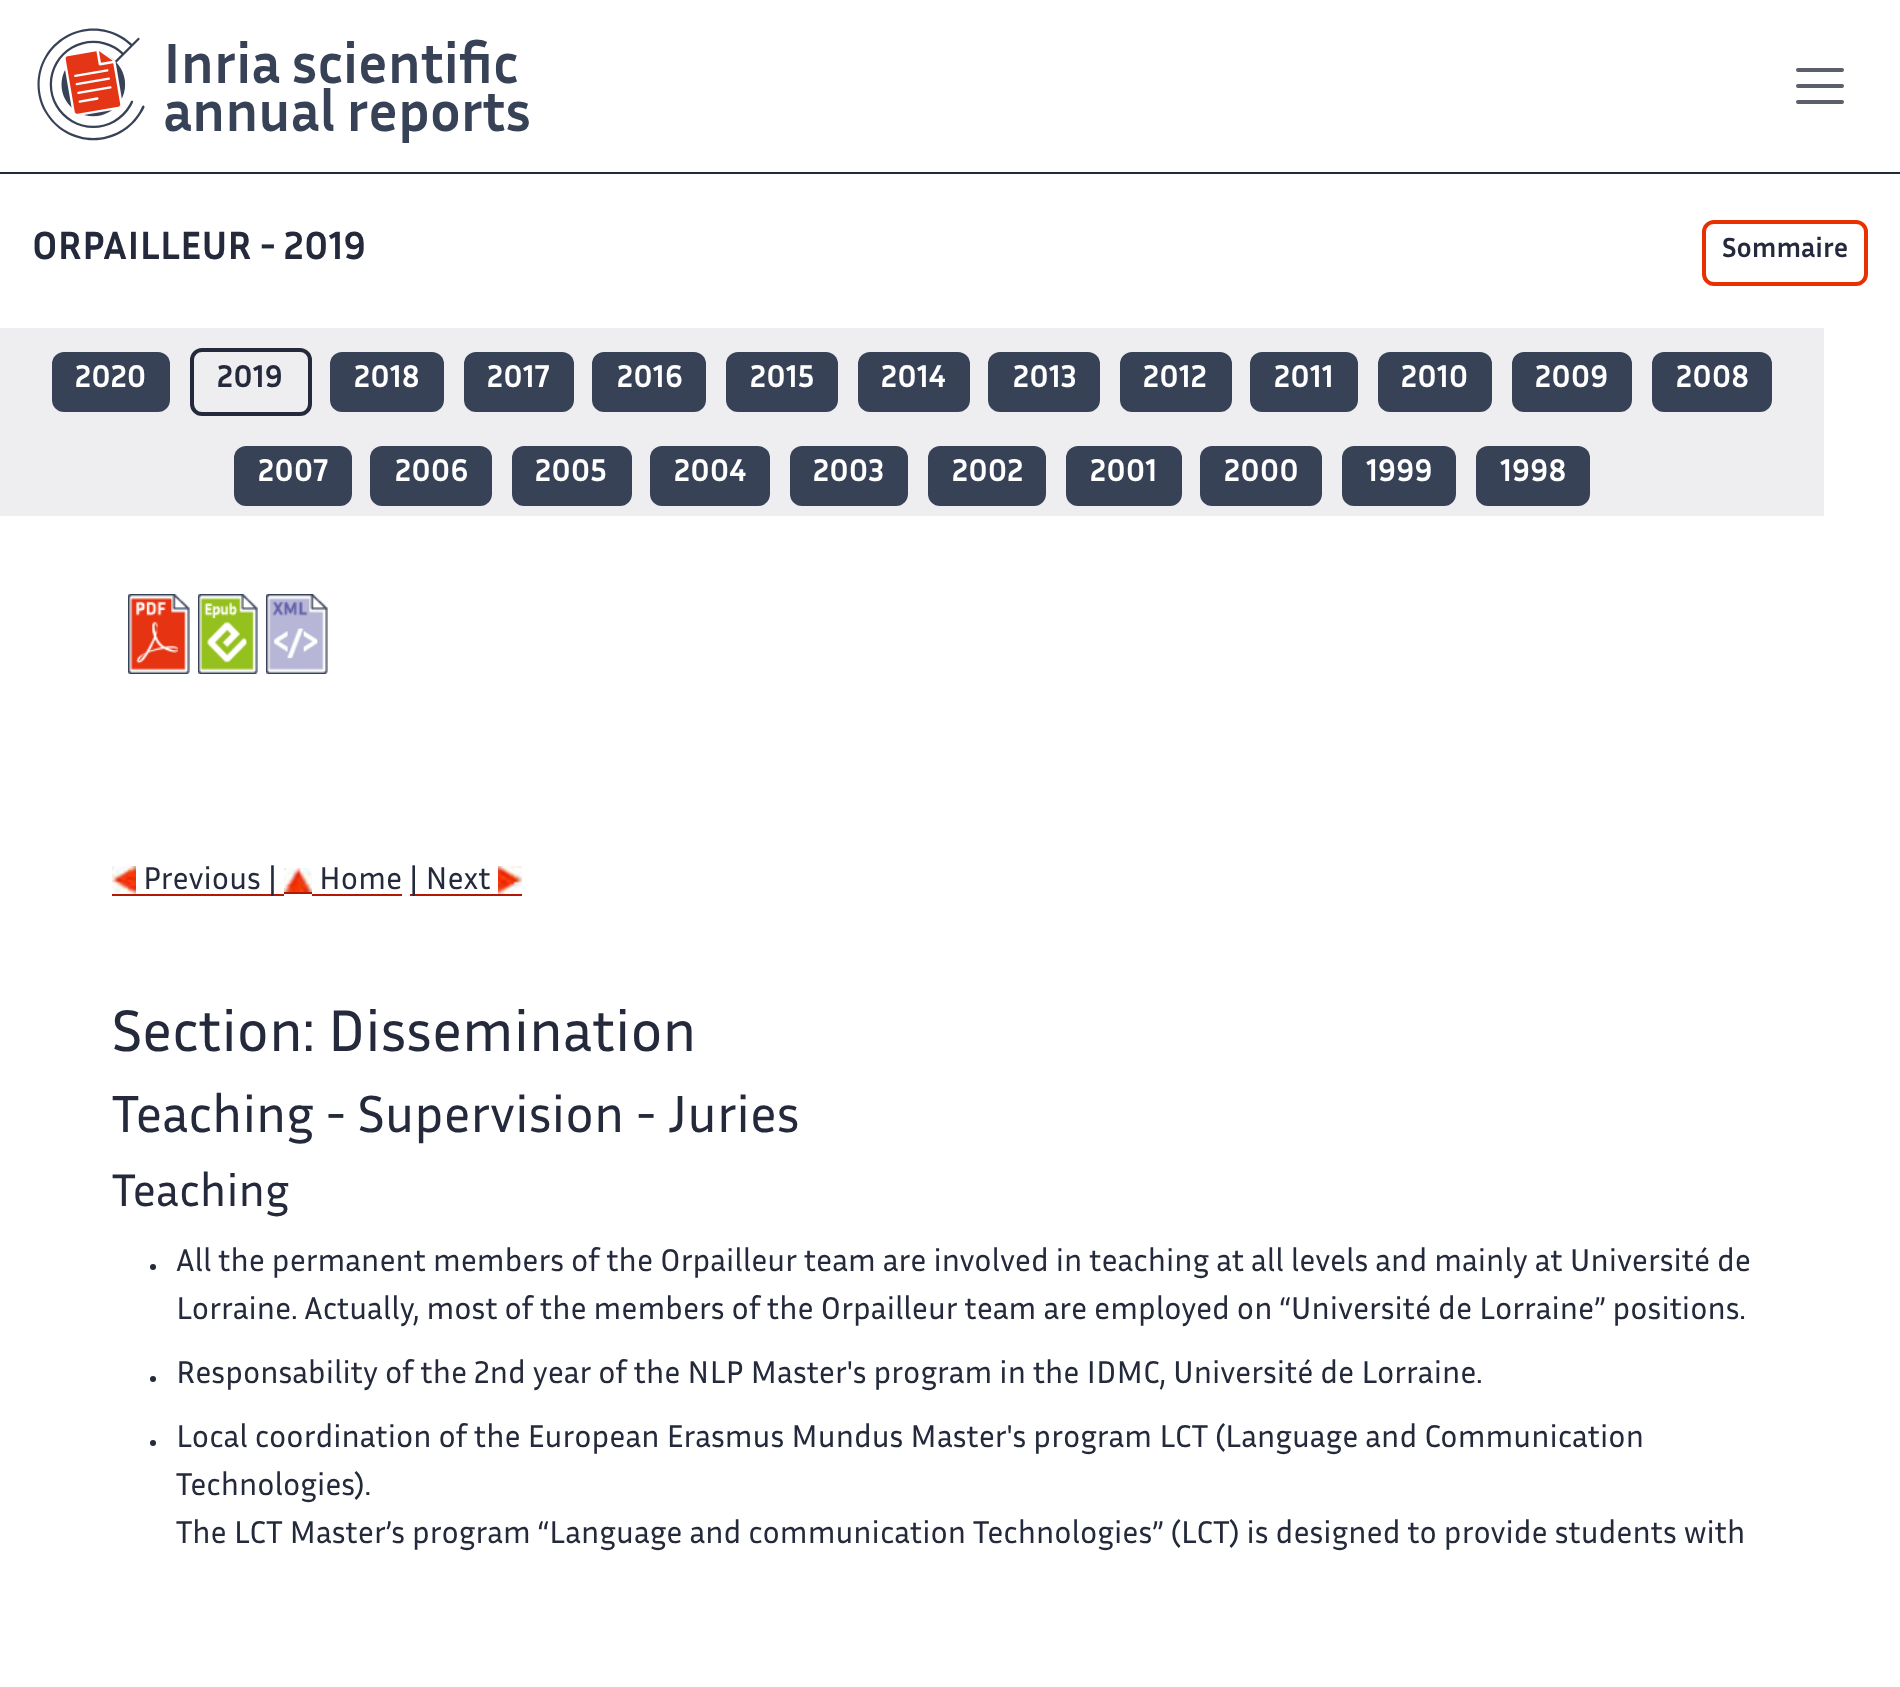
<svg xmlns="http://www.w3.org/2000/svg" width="1900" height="1687">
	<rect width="100%" height="100%" fill="#FFFFFF" />
	<rect x="0" y="172" width="1900" height="2" fill="#242A3B" />
	<image x="37" y="28" width="492" height="115" href="assets/img1.png" />
	<path d="M1798 70H1842M1798 86H1842M1798 102H1842" fill="none" stroke="#5B5F6C" stroke-width="4" stroke-linecap="round" />
	<text x="32" y="259" font-family="Inria Sans" font-size="40" font-weight="700" fill="#242A3B">ORPAILLEUR - 2019</text>
	<rect x="1704" y="222" width="162" height="62" rx="10" fill="none" stroke="#E83101" stroke-width="4" />
	<text x="1722" y="257" font-family="Inria Sans" font-size="28" font-weight="700" fill="#242A3B">Sommaire</text>
	<rect x="0" y="328" width="1824" height="188" fill="#EEEDF0" />
	<rect x="52" y="352" width="118" height="60" rx="12" fill="#384257" />
	<text x="75" y="387" font-family="Inria Sans" font-size="32" font-weight="700" fill="#FFFFFF">2020</text>
	<rect x="192" y="350" width="118" height="64" rx="10" fill="none" stroke="#242A3B" stroke-width="4" />
	<text x="217" y="387" font-family="Inria Sans" font-size="32" font-weight="700" fill="#242A3B">2019</text>
	<rect x="330" y="352" width="114" height="60" rx="12" fill="#384257" />
	<text x="354" y="387" font-family="Inria Sans" font-size="32" font-weight="700" fill="#FFFFFF">2018</text>
	<rect x="464" y="352" width="110" height="60" rx="12" fill="#384257" />
	<text x="487" y="387" font-family="Inria Sans" font-size="32" font-weight="700" fill="#FFFFFF">2017</text>
	<rect x="592" y="352" width="114" height="60" rx="12" fill="#384257" />
	<text x="617" y="387" font-family="Inria Sans" font-size="32" font-weight="700" fill="#FFFFFF">2016</text>
	<rect x="726" y="352" width="112" height="60" rx="12" fill="#384257" />
	<text x="750" y="387" font-family="Inria Sans" font-size="32" font-weight="700" fill="#FFFFFF">2015</text>
	<rect x="858" y="352" width="112" height="60" rx="12" fill="#384257" />
	<text x="881" y="387" font-family="Inria Sans" font-size="32" font-weight="700" fill="#FFFFFF">2014</text>
	<rect x="988" y="352" width="112" height="60" rx="12" fill="#384257" />
	<text x="1013" y="387" font-family="Inria Sans" font-size="32" font-weight="700" fill="#FFFFFF">2013</text>
	<rect x="1120" y="352" width="112" height="60" rx="12" fill="#384257" />
	<text x="1143" y="387" font-family="Inria Sans" font-size="32" font-weight="700" fill="#FFFFFF">2012</text>
	<rect x="1250" y="352" width="108" height="60" rx="12" fill="#384257" />
	<text x="1274" y="387" font-family="Inria Sans" font-size="32" font-weight="700" fill="#FFFFFF">2011</text>
	<rect x="1378" y="352" width="114" height="60" rx="12" fill="#384257" />
	<text x="1401" y="387" font-family="Inria Sans" font-size="32" font-weight="700" fill="#FFFFFF">2010</text>
	<rect x="1512" y="352" width="120" height="60" rx="12" fill="#384257" />
	<text x="1535" y="387" font-family="Inria Sans" font-size="32" font-weight="700" fill="#FFFFFF">2009</text>
	<rect x="1652" y="352" width="120" height="60" rx="12" fill="#384257" />
	<text x="1676" y="387" font-family="Inria Sans" font-size="32" font-weight="700" fill="#FFFFFF">2008</text>
	<rect x="234" y="446" width="118" height="60" rx="12" fill="#384257" />
	<text x="258" y="481" font-family="Inria Sans" font-size="32" font-weight="700" fill="#FFFFFF">2007</text>
	<rect x="370" y="446" width="122" height="60" rx="12" fill="#384257" />
	<text x="395" y="481" font-family="Inria Sans" font-size="32" font-weight="700" fill="#FFFFFF">2006</text>
	<rect x="512" y="446" width="120" height="60" rx="12" fill="#384257" />
	<text x="535" y="481" font-family="Inria Sans" font-size="32" font-weight="700" fill="#FFFFFF">2005</text>
	<rect x="650" y="446" width="120" height="60" rx="12" fill="#384257" />
	<text x="674" y="481" font-family="Inria Sans" font-size="32" font-weight="700" fill="#FFFFFF">2004</text>
	<rect x="790" y="446" width="118" height="60" rx="12" fill="#384257" />
	<text x="813" y="481" font-family="Inria Sans" font-size="32" font-weight="700" fill="#FFFFFF">2003</text>
	<rect x="928" y="446" width="118" height="60" rx="12" fill="#384257" />
	<text x="952" y="481" font-family="Inria Sans" font-size="32" font-weight="700" fill="#FFFFFF">2002</text>
	<rect x="1066" y="446" width="116" height="60" rx="12" fill="#384257" />
	<text x="1090" y="481" font-family="Inria Sans" font-size="32" font-weight="700" fill="#FFFFFF">2001</text>
	<rect x="1200" y="446" width="122" height="60" rx="12" fill="#384257" />
	<text x="1224" y="481" font-family="Inria Sans" font-size="32" font-weight="700" fill="#FFFFFF">2000</text>
	<rect x="1342" y="446" width="114" height="60" rx="12" fill="#384257" />
	<text x="1366" y="481" font-family="Inria Sans" font-size="32" font-weight="700" fill="#FFFFFF">1999</text>
	<rect x="1476" y="446" width="114" height="60" rx="12" fill="#384257" />
	<text x="1500" y="481" font-family="Inria Sans" font-size="32" font-weight="700" fill="#FFFFFF">1998</text>
	<image x="128" y="594" width="62" height="80" href="assets/img2.png" />
	<image x="198" y="594" width="60" height="80" href="assets/img3.png" />
	<image x="266" y="594" width="62" height="80" href="assets/img4.png" />
	<image x="112" y="866" width="24" height="28" href="assets/img5.png" />
	<rect x="112" y="894" width="172" height="2" fill="#B11904" />
	<text x="143" y="889" font-family="Inria Sans" font-size="32" fill="#242A3B">Previous |</text>
	<image x="284" y="868" width="28" height="24" href="assets/img6.png" />
	<text x="319" y="889" font-family="Inria Sans" font-size="32" fill="#242A3B">Home</text>
	<rect x="284" y="892" width="28" height="2" fill="#B11904" />
	<rect x="312" y="894" width="90" height="2" fill="#B11904" />
	<rect x="410" y="894" width="112" height="2" fill="#B11904" />
	<text x="409" y="889" font-family="Inria Sans" font-size="32" fill="#242A3B">| Next</text>
	<image x="498" y="866" width="24" height="28" href="assets/img7.png" />
	<text x="112" y="1051" font-family="Inria Sans" font-size="59.5" fill="#242A3B">Section: Dissemination</text>
	<text x="112" y="1132" font-family="Inria Sans" font-size="53" fill="#242A3B">Teaching - Supervision - Juries</text>
	<text x="112" y="1206" font-family="Inria Sans" font-size="46.5" fill="#242A3B">Teaching</text>
	<circle cx="153" cy="1267" r="3" fill="#242A3B" />
	<g font-family="Inria Sans" font-size="32" fill="#242A3B">
		<text x="176" y="1271">All the permanent members of the Orpailleur team are involved in teaching at all levels and mainly at Université de</text>
		<text x="176" y="1319">Lorraine. Actually, most of the members of the Orpailleur team are employed on “Université de Lorraine” positions.</text>
	</g>
	<circle cx="153" cy="1379" r="3" fill="#242A3B" />
	<text x="176" y="1383" font-family="Inria Sans" font-size="32" fill="#242A3B">Responsability of the 2nd year of the NLP Master's program in the IDMC, Université de Lorraine.</text>
	<circle cx="153" cy="1443" r="3" fill="#242A3B" />
	<g font-family="Inria Sans" font-size="32" fill="#242A3B">
		<text x="176" y="1447">Local coordination of the European Erasmus Mundus Master's program LCT (Language and Communication</text>
		<text x="176" y="1495">Technologies).</text>
		<text x="176" y="1543">The LCT Master’s program “Language and communication Technologies” (LCT) is designed to provide students with</text>
	</g>
</svg>
